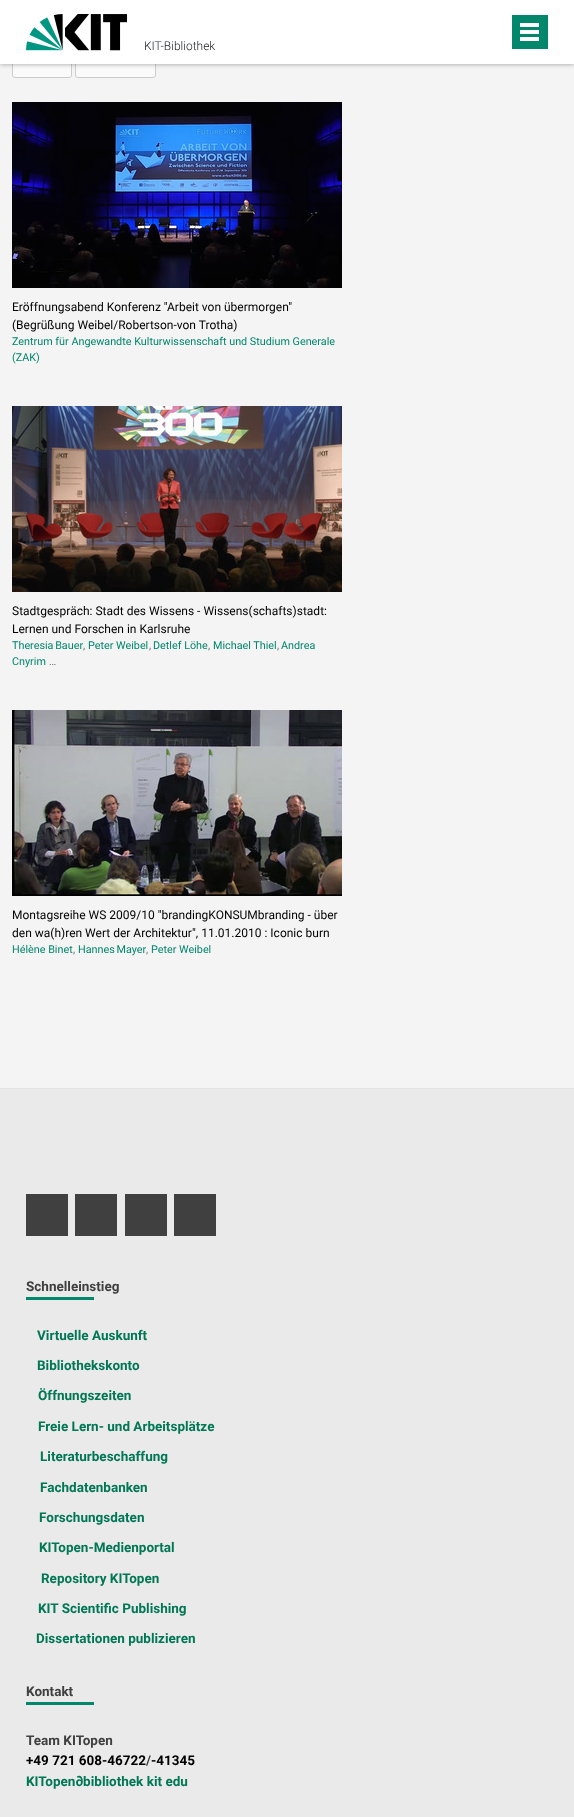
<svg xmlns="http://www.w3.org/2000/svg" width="574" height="1817">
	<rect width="100%" height="100%" fill="#F4F4F4" />
	<rect x="12.5" y="50.5" width="59" height="27" rx="2.5" fill="#FAFAFA" stroke="#CCCCCC" />
	<rect x="75.5" y="50.5" width="80" height="27" rx="2.5" fill="#FAFAFA" stroke="#CCCCCC" />
	<rect x="0" y="0" width="574" height="64" fill="#404040" fill-opacity="0.5" filter="blur(2.5px)" />
	<rect x="0" y="0" width="574" height="64" fill="#FFFFFF" />
	<image x="26" y="14" width="102" height="37" href="assets/img1.png" />
	<text x="144" y="50" font-family="Roboto" font-size="12" font-weight="300" fill="#212529">KIT-Bibliothek</text>
	<rect x="512" y="15" width="36" height="34" fill="#00876C" />
	<rect x="520" y="37" width="19" height="4" fill="#FFFFFF" />
	<rect x="520" y="30" width="19" height="4" fill="#FFFFFF" />
	<rect x="520" y="23" width="19" height="4" fill="#FFFFFF" />
	<image x="12" y="102" width="330" height="186" href="assets/img2.png" />
	<g font-family="Roboto" font-size="12" fill="#000000">
		<text x="12" y="311">Eröffnungsabend Konferenz "Arbeit von übermorgen"</text>
		<text x="12" y="329">(Begrüßung Weibel/Robertson-von Trotha)</text>
	</g>
	<g font-family="Roboto" font-size="10.8" fill="#00876C">
		<text x="12" y="345">Zentrum für Angewandte Kulturwissenschaft und Studium Generale</text>
		<text x="12" y="361">(ZAK)</text>
	</g>
	<image x="12" y="406" width="330" height="186" href="assets/img3.png" />
	<g font-family="Roboto" font-size="12" fill="#000000">
		<text x="12" y="615">Stadtgespräch: Stadt des Wissens - Wissens(schafts)stadt:</text>
		<text x="12" y="633">Lernen und Forschen in Karlsruhe</text>
	</g>
	<text x="12" y="649" word-spacing="-1" font-family="Roboto" font-size="10.8" fill="#00876C">Theresia Bauer</text>
	<text x="83" y="649" font-family="Roboto" font-size="10.8" fill="#777777">,</text>
	<text x="88" y="649" font-family="Roboto" font-size="10.8" fill="#00876C">Peter Weibel</text>
	<text x="149" y="649" font-family="Roboto" font-size="10.8" fill="#777777">,</text>
	<text x="153" y="649" font-family="Roboto" font-size="10.8" fill="#00876C">Detlef Löhe</text>
	<text x="208" y="649" font-family="Roboto" font-size="10.8" fill="#777777">,</text>
	<text x="213" y="649" font-family="Roboto" font-size="10.8" fill="#00876C">Michael Thiel</text>
	<text x="277" y="649" font-family="Roboto" font-size="10.8" fill="#777777">,</text>
	<g font-family="Roboto" font-size="10.8" fill="#00876C">
		<text x="281" y="649">Andrea</text>
		<text x="12" y="665">Cnyrim</text>
	</g>
	<text x="49" y="665" font-family="Roboto" font-size="10.8" fill="#777777">…</text>
	<image x="12" y="710" width="330" height="186" href="assets/img4.png" />
	<g font-family="Roboto" font-size="12" fill="#000000">
		<text x="12" y="919">Montagsreihe WS 2009/10 "brandingKONSUMbranding - über</text>
		<text x="12" y="937">den wa(h)ren Wert der Architektur", 11.01.2010 : Iconic burn</text>
	</g>
	<text x="12" y="953" font-family="Roboto" font-size="10.8" fill="#00876C">Hélène Binet</text>
	<text x="73" y="953" font-family="Roboto" font-size="10.8" fill="#777777">,</text>
	<text x="78" y="953" word-spacing="-1" font-family="Roboto" font-size="10.8" fill="#00876C">Hannes Mayer</text>
	<text x="146" y="953" font-family="Roboto" font-size="10.8" fill="#777777">,</text>
	<text x="151" y="953" font-family="Roboto" font-size="10.8" fill="#00876C">Peter Weibel</text>
	<rect x="0" y="1089" width="574" height="728" fill="#EAEAEA" />
	<rect x="0" y="1088" width="574" height="1" fill="#E4E4E4" />
	<rect x="26" y="1194" width="42" height="42" fill="#404040" />
	<rect x="75" y="1194" width="42" height="42" fill="#404040" />
	<rect x="125" y="1194" width="42" height="42" fill="#404040" />
	<rect x="174" y="1194" width="42" height="42" fill="#404040" />
	<text x="26" y="1291" font-family="Roboto" font-size="13.5" font-weight="700" fill="#404040">Schnelleinstieg</text>
	<rect x="26" y="1297" width="68" height="3" fill="#00876C" />
	<g font-family="Roboto" font-size="13.5" font-weight="700" fill="#007755">
		<text x="37" y="1340">Virtuelle Auskunft</text>
		<text x="37" y="1370">Bibliothekskonto</text>
		<text x="38" y="1400">Öffnungszeiten</text>
		<text x="38" y="1431">Freie Lern- und Arbeitsplätze</text>
		<text x="40" y="1461">Literaturbeschaffung</text>
		<text x="40" y="1492">Fachdatenbanken</text>
		<text x="39" y="1522">Forschungsdaten</text>
		<text x="39" y="1552">KITopen-Medienportal</text>
		<text x="41" y="1583">Repository KITopen</text>
		<text x="38" y="1613">KIT Scientific Publishing</text>
		<text x="36" y="1643">Dissertationen publizieren</text>
	</g>
	<text x="26" y="1696" font-family="Roboto" font-size="13.5" font-weight="700" fill="#404040">Kontakt</text>
	<rect x="26" y="1702" width="68" height="3" fill="#00876C" />
	<text x="26" y="1745" font-family="Roboto" font-size="13.5" font-weight="700" fill="#404040">Team KITopen</text>
	<text x="26" y="1765" font-family="Roboto" font-size="13.5" font-weight="700" fill="#000000">+49 721 608-46722</text>
	<text x="146" y="1765" font-family="Roboto" font-size="13.5" font-weight="700" fill="#404040">/</text>
	<text x="151" y="1765" font-family="Roboto" font-size="13.5" font-weight="700" fill="#000000">-41345</text>
	<text x="26" y="1786" font-family="Roboto" font-size="13.5" font-weight="700" fill="#007755">KITopen∂bibliothek kit edu</text>
</svg>
